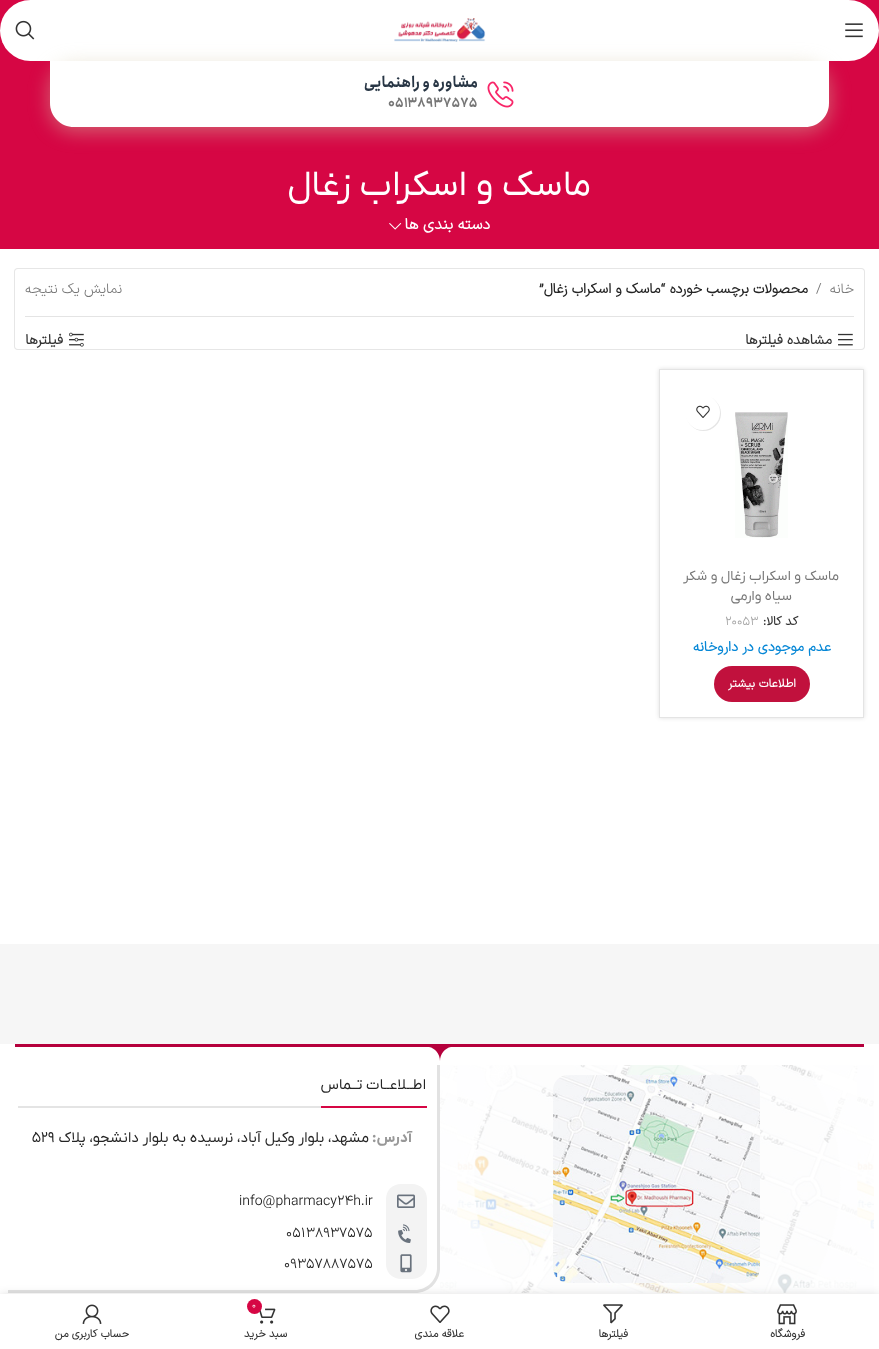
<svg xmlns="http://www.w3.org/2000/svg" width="879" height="1349">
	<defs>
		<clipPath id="clip1"><path d="M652 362H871V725H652ZM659 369H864V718H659Z" clip-rule="evenodd" /></clipPath>
		<clipPath id="clip2"><rect x="15" y="1044" width="849" height="17" /></clipPath>
	</defs>
	<rect width="100%" height="100%" fill="#F6F6F6" />
	<rect x="0" y="0" width="879" height="249" fill="#D60644" />
	<rect x="0" y="0" width="879" height="61" rx="30.5" fill="#FFFFFF" />
	<rect x="50" y="65" width="779" height="66" rx="24" fill="#D1C5A4" fill-opacity="0.5" filter="blur(10px)" />
	<image x="845" y="23" width="18" height="15" href="assets/img1.png" />
	<image x="394" y="18" width="92" height="24" href="assets/img2.png" />
	<image x="15" y="20" width="20" height="20" href="assets/img3.png" />
	<path d="M50 61H829V103C829 116.5 818.5 127 805 127H74C60.5 127 50 116.5 50 103Z" fill="#FFFFFF" />
	<image x="487" y="81" width="27" height="27" href="assets/img4.png" />
	<text x="478" y="87" font-family="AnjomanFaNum" font-size="15" font-weight="700" direction="rtl" fill="#273544">مشاوره و راهنمایی</text>
	<text x="388" y="107" font-family="AnjomanFaNum" font-size="13" font-weight="700" fill="#767676">05138937575</text>
	<rect x="0" y="249" width="879" height="695" fill="#FFFFFF" />
	<text x="591" y="195" font-family="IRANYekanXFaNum" font-size="36" direction="rtl" fill="#FFFFFF">ماسک و اسکراب زغال</text>
	<text x="490" y="229" font-family="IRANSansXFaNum" font-size="15.5" font-weight="700" direction="rtl" fill="#FFFFFF">دسته بندی ها</text>
	<image x="389" y="223" width="13" height="7" href="assets/img5.png" />
	<rect x="14" y="268" width="851" height="82" rx="4" fill="#E6E6E6" filter="blur(0.5px)" />
	<rect x="15" y="269" width="849" height="80" rx="3" fill="#FFFFFF" />
	<rect x="25" y="316" width="829" height="1" fill="#E4E4E4" />
	<text x="854" y="293" font-family="IRANSansXFaNum" font-size="14" font-weight="300" direction="rtl" fill="#767676">خانه</text>
	<text x="816" y="293" font-family="IRANSansXFaNum" font-size="14" font-weight="300" fill="#767676">/</text>
	<g font-family="IRANSansXFaNum" font-size="14" font-weight="700" direction="rtl" fill="#242424">
		<text x="808" y="293">محصولات برچسب خورده</text>
		<text x="665" y="293">“ماسک و اسکراب زغال”</text>
	</g>
	<text x="122" y="293" font-family="IRANSansXFaNum" font-size="14" font-weight="300" direction="rtl" fill="#767676">نمایش یک نتیجه</text>
	<image x="838" y="333" width="15" height="13" href="assets/img6.png" />
	<text x="832" y="344" font-family="IRANSansXFaNum" font-size="14" font-weight="700" direction="rtl" fill="#333333">مشاهده فیلترها</text>
	<image x="69" y="332" width="15" height="15" href="assets/img7.png" />
	<text x="63" y="344" font-family="IRANSansXFaNum" font-size="14" font-weight="700" direction="rtl" fill="#333333">فیلترها</text>
	<g clip-path="url(#clip1)">
		<rect x="659" y="369" width="205" height="349" fill="#000000" fill-opacity="0.12" filter="blur(2px)" />
	</g>
	<rect x="659.5" y="369.5" width="204" height="348" fill="none" stroke="#E4E4E4" />
	<image x="735" y="412" width="53" height="126" href="assets/img8.png" />
	<rect x="686" y="396" width="35" height="35" rx="17.5" fill="#000000" fill-opacity="0.1" filter="blur(0.5px)" />
	<circle cx="702.5" cy="412.5" r="17.5" fill="#FFFFFF" />
	<image x="696" y="405" width="14" height="13" href="assets/img9.png" />
	<g font-family="IRANYekanXFaNum" font-size="14" direction="rtl" fill="#767676">
		<text x="839" y="580">ماسک و اسکراب زغال و شکر</text>
		<text x="792" y="600">سیاه وارمی</text>
	</g>
	<text x="798" y="625" font-family="IRANSansXFaNum" font-size="12.5" font-weight="700" direction="rtl" fill="#333333">کد کالا:</text>
	<text x="725" y="625" font-family="IRANSansXFaNum" font-size="12.5" font-weight="300" fill="#A5A5A5">20053</text>
	<text x="831" y="651" font-family="IRANSansXFaNum" font-size="14" font-weight="700" direction="rtl" fill="#0687D6">عدم موجودی در داروخانه</text>
	<rect x="714" y="666" width="96" height="36" rx="18" fill="#C1113D" />
	<text x="796" y="687" font-family="IRANSansXFaNum" font-size="12" font-weight="700" direction="rtl" fill="#FFFFFF">اطلاعات بیشتر</text>
	<rect x="0" y="1044" width="879" height="250" fill="#FFFFFF" />
	<g clip-path="url(#clip2)">
		<path d="M15 1044V1047H429C435 1048 440 1054 440 1061C440 1054 445 1048 451 1047H865V1044Z" fill="#B5003C" />
	</g>
	<image x="440" y="1065" width="434" height="228" href="assets/img10.png" />
	<image x="553" y="1075" width="207" height="208" href="assets/img11.png" />
	<path d="M8 1065H440V1268C440 1282 429 1293 415 1293H8ZM8 1065H437V1268C437 1280 427 1290 415 1290H8Z" fill="#E2E2E2" fill-rule="evenodd" />
	<rect x="18" y="1106" width="303" height="2" fill="#E4E4E4" />
	<rect x="321" y="1106" width="106" height="2" fill="#D60644" />
	<text x="426" y="1089" font-family="IRANYekanXFaNum" font-size="15" direction="rtl" fill="#242424">اطــلاعــات تــماس</text>
	<text x="412" y="1142" font-family="IRANYekanXFaNum" font-size="15" font-weight="700" direction="rtl" fill="#989898">آدرس:</text>
	<text x="369" y="1142" font-family="IRANYekanXFaNum" font-size="15" direction="rtl" fill="#242424">مشهد، بلوار وکیل آباد، نرسیده به بلوار دانشجو، پلاک</text>
	<text x="32" y="1142" font-family="IRANYekanXFaNum" font-size="15" fill="#242424">529</text>
	<path d="M401 1184H412C420.5 1184 427 1190.5 427 1199V1217H386V1199C386 1190.5 392.5 1184 401 1184Z" fill="#F3F3F3" />
	<image x="397" y="1194" width="18" height="14" href="assets/img12.png" />
	<text x="239" y="1205" font-family="IRANSansXFaNum" font-size="14" font-weight="300" fill="#242424">info@pharmacy24h.ir</text>
	<rect x="386" y="1217" width="41" height="29" fill="#F3F3F3" />
	<image x="398" y="1224" width="13" height="19" href="assets/img13.png" />
	<text x="286" y="1237" font-family="IRANSansXFaNum" font-size="14" font-weight="300" fill="#242424">05138937575</text>
	<path d="M386 1246H427V1264C427 1272.5 420.5 1279 412 1279H401C392.5 1279 386 1272.5 386 1264Z" fill="#F3F3F3" />
	<image x="400" y="1254" width="12" height="19" href="assets/img14.png" />
	<text x="284" y="1268" font-family="IRANSansXFaNum" font-size="14" font-weight="300" fill="#242424">09357887575</text>
	<rect x="0" y="1294" width="879" height="55" fill="#000000" fill-opacity="0.12" filter="blur(4.5px)" />
	<rect x="0" y="1294" width="879" height="55" fill="#FFFFFF" />
	<image x="777" y="1304" width="20" height="21" href="assets/img15.png" />
	<text x="805" y="1337" font-family="IRANSansXFaNum" font-size="11" font-weight="700" direction="rtl" fill="#333333">فروشگاه</text>
	<image x="603" y="1304" width="20" height="20" href="assets/img16.png" />
	<text x="628" y="1337" font-family="IRANSansXFaNum" font-size="11" font-weight="700" direction="rtl" fill="#333333">فیلترها</text>
	<image x="430" y="1305" width="20" height="18" href="assets/img17.png" />
	<text x="464" y="1337" font-family="IRANSansXFaNum" font-size="11" font-weight="700" direction="rtl" fill="#333333">علاقه مندی</text>
	<image x="259" y="1308" width="17" height="16" href="assets/img18.png" />
	<circle cx="254.5" cy="1306.5" r="7.5" fill="#D60644" />
	<text x="252" y="1308" font-family="IRANSansXFaNum" font-size="9" font-weight="300" fill="#FFFFFF">0</text>
	<text x="287" y="1337" font-family="IRANSansXFaNum" font-size="11" font-weight="700" direction="rtl" fill="#333333">سبد خرید</text>
	<image x="82" y="1304" width="20" height="20" href="assets/img19.png" />
	<text x="129" y="1337" font-family="IRANSansXFaNum" font-size="11" font-weight="700" direction="rtl" fill="#333333">حساب کاربری من</text>
</svg>
